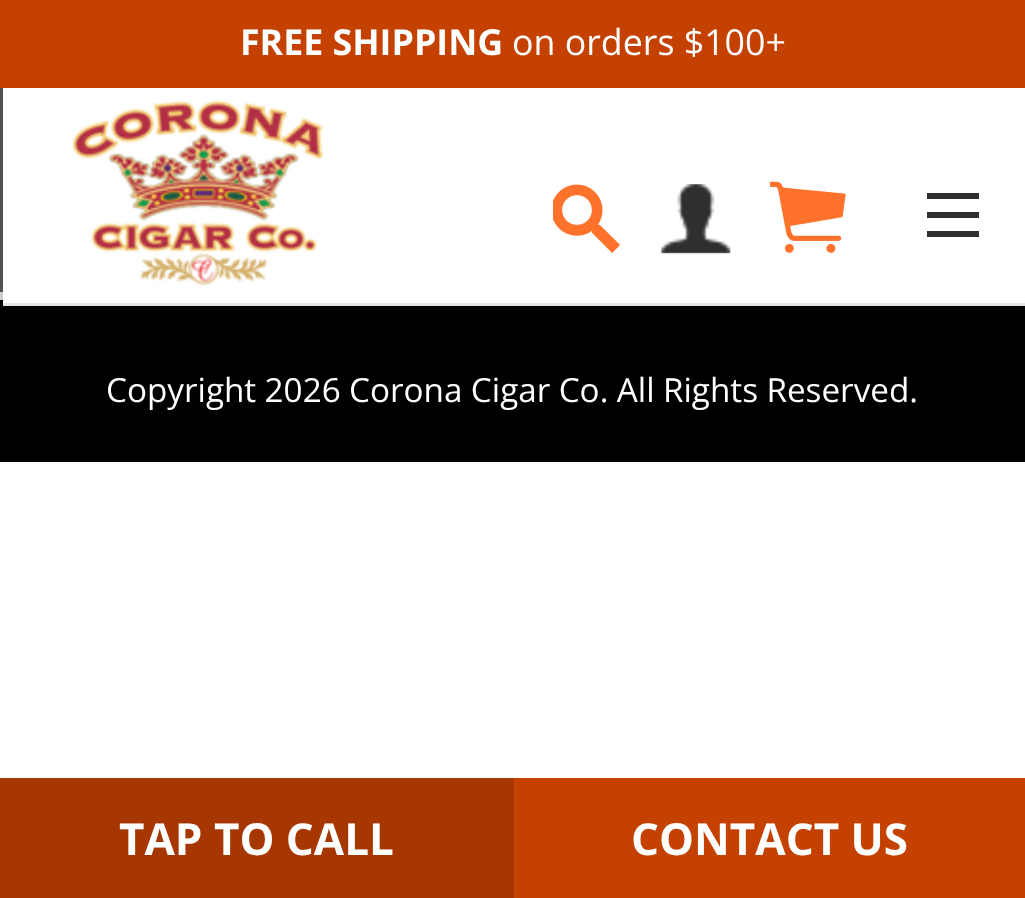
<svg xmlns="http://www.w3.org/2000/svg" width="1025" height="898">
	<rect width="100%" height="100%" fill="#FFFFFF" />
	<rect x="0" y="0" width="1025" height="88" fill="#C44100" />
	<text x="240" y="55" font-family="Open Sans" font-size="35.75" font-weight="700" fill="#FFFFFF">FREE SHIPPING</text>
	<text x="512" y="55" font-family="Open Sans" font-size="35.75" fill="#FFFFFF">on orders $100+</text>
	<rect x="0" y="300" width="1025" height="162" fill="#000000" />
	<rect x="3" y="300" width="1022" height="3" fill="#FFFFFF" />
	<rect x="3" y="303" width="1022" height="3" fill="#E5E5E5" />
	<image x="71" y="99" width="253" height="187" href="assets/img1.png" />
	<image x="553" y="184" width="67" height="69" href="assets/img2.png" />
	<image x="660" y="184" width="71" height="70" href="assets/img3.png" />
	<image x="770" y="181" width="76" height="72" href="assets/img4.png" />
	<rect x="927" y="212" width="52" height="6" fill="#2F2F2F" />
	<rect x="927" y="193" width="52" height="6" fill="#2F2F2F" />
	<rect x="927" y="231" width="52" height="6" fill="#2F2F2F" />
	<rect x="0" y="88" width="3" height="204" fill="#525252" />
	<rect x="0" y="292" width="3" height="8" fill="#CCCCCC" />
	<text x="106" y="402" word-spacing="-0.25" font-family="Open Sans" font-size="33.25" fill="#FFFFFF">Copyright 2026 Corona Cigar Co. All Rights Reserved.</text>
	<rect x="0" y="778" width="514" height="120" fill="#A63700" />
	<text x="119" y="855" font-family="Open Sans" font-size="44" font-weight="700" fill="#FFFFFF">TAP TO CALL</text>
	<rect x="514" y="778" width="511" height="120" fill="#C44100" />
	<text x="631" y="855" font-family="Open Sans" font-size="44" font-weight="700" fill="#FFFFFF">CONTACT US</text>
</svg>
